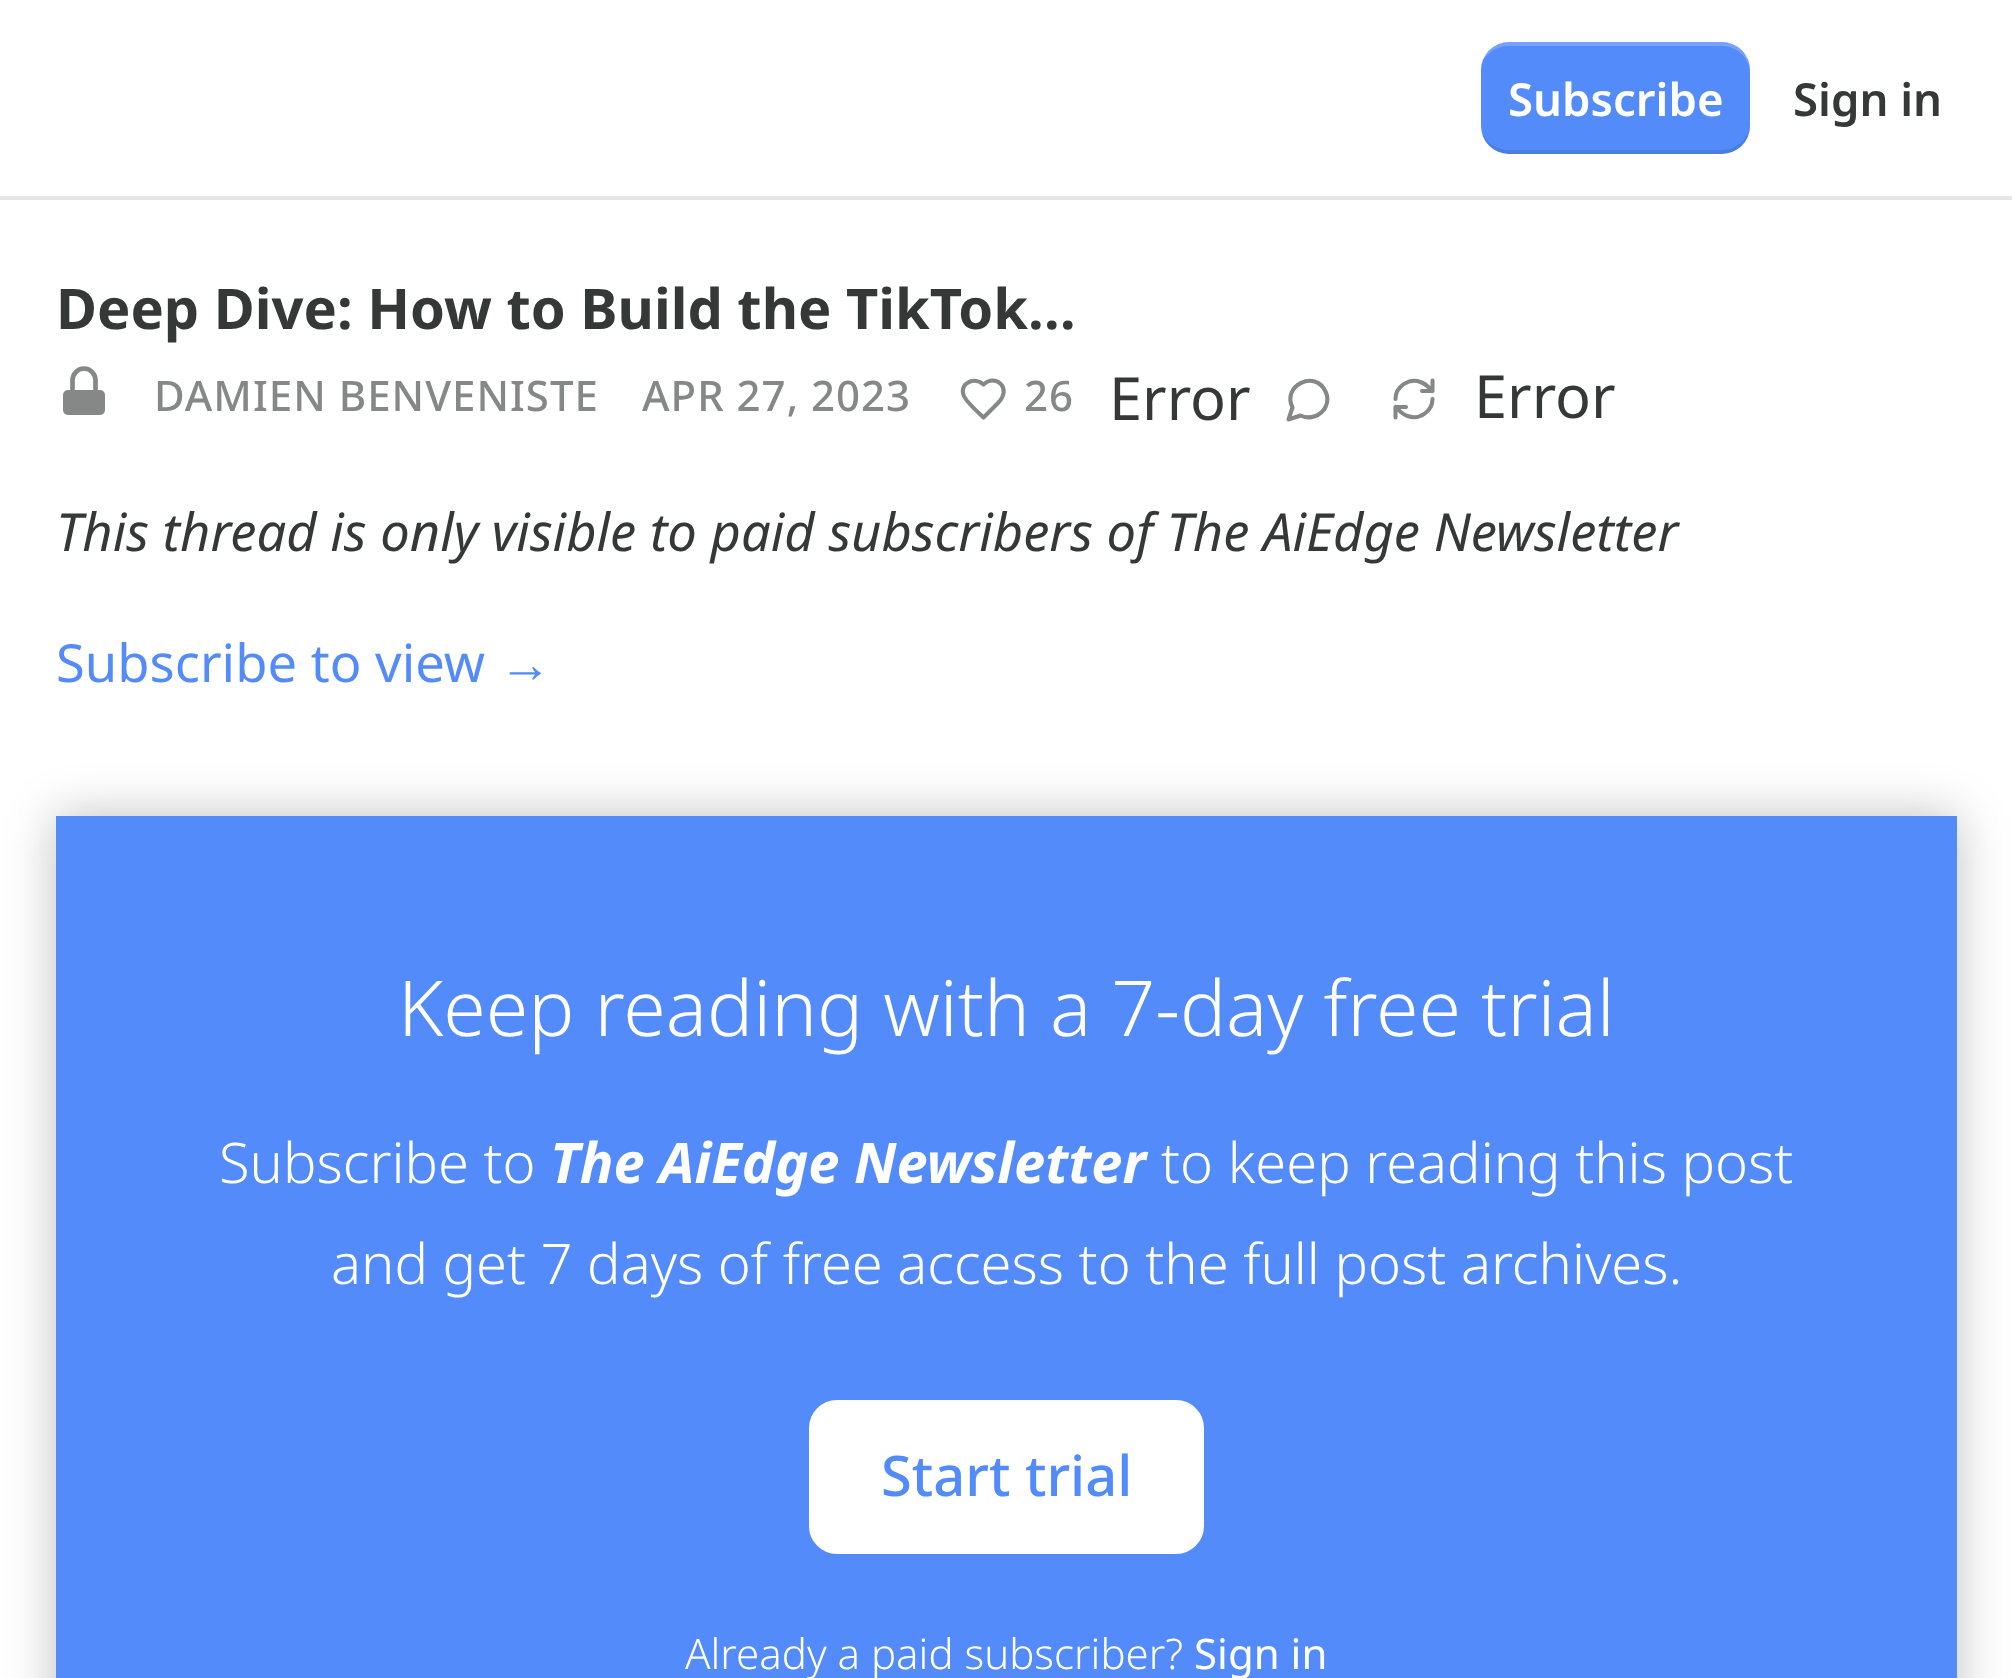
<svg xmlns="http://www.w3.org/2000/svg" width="2012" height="1678">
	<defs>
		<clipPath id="clip1"><path d="M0 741H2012V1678H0ZM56 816H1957V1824H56Z" clip-rule="evenodd" /></clipPath>
	</defs>
	<rect width="100%" height="100%" fill="#FFFFFF" />
	<rect x="0" y="196" width="2012" height="4" fill="#E6E6E6" />
	<rect x="1481" y="42" width="269" height="112" rx="28" fill="#538CFA" />
	<path d="M1481 131C1484 144 1495 154 1509 154H1722C1737 154 1750 141 1750 126V122C1750 138 1737 150 1722 150H1508C1496 150 1485 142 1481 131Z" fill="#000000" fill-opacity="0.1" />
	<path d="M1508 46H1722C1737 46 1750 58 1750 74V70C1750 55 1737 42 1722 42H1509C1495 42 1484 52 1481 65C1485 54 1496 46 1508 46Z" fill="#FFFFFF" fill-opacity="0.2" />
	<text x="1508" y="116" font-family="Noto Sans" font-size="45.5" font-weight="600" fill="#FFFFFF">Subscribe</text>
	<text x="1793" y="116" font-family="Noto Sans" font-size="45.5" font-weight="600" fill="#363737">Sign in</text>
	<text x="56" y="329" font-family="Noto Sans" font-size="56" font-weight="700" fill="#363737">Deep Dive: How to Build the TikTok…</text>
	<rect x="63" y="390" width="42" height="25" rx="5" fill="#868787" />
	<path d="M72.5 389.5V380.5C72.5 374 77.5 368.5 84 368.5C90.5 368.5 95.5 374 95.5 380.5V389.5" fill="none" stroke="#868787" stroke-width="4.7" stroke-linecap="round" stroke-linejoin="round" />
	<g font-family="Noto Sans" font-size="42" font-weight="500" letter-spacing="1" fill="#868787">
		<text x="154" y="411">DAMIEN BENVENISTE</text>
		<text x="642" y="411">APR 27, 2023</text>
	</g>
	<path d="M998 403C1013 388 995 373 983.5 384.5C975 376.5 959.5 382.5 963.5 395C965.5 401.5 978.5 412.5 983.5 417.5Z" fill="none" stroke="#868787" stroke-width="4.1" stroke-linecap="round" stroke-linejoin="round" />
	<text x="1024" y="411" font-family="Noto Sans" font-size="42" font-weight="500" letter-spacing="1" fill="#868787">26</text>
	<text x="1109" y="420" font-family="Noto Sans" font-size="59.5" fill="#363737">Error</text>
	<path d="M1300.5 415.5C1309.5 420 1321 416 1325.5 407C1328 402 1328 396.5 1325.5 391.5C1315.5 369 1281.5 385.5 1292.5 407.5L1288.5 419.5Z" fill="none" stroke="#868787" stroke-width="4.1" stroke-linecap="round" stroke-linejoin="round" />
	<path d="M1432.5 380.5V391M1432.5 391H1422M1432.5 391C1429 387.5 1425.5 383.5 1420.5 382C1409 377.5 1395.5 386.5 1395.5 399M1395.5 417.5V407M1395.5 407H1406M1395.5 407C1399 410.5 1402.5 414.5 1407.5 416C1419 420.5 1432.5 411.5 1432.5 399" fill="none" stroke="#868787" stroke-width="4.1" stroke-linecap="round" stroke-linejoin="round" />
	<text x="1474" y="418" font-family="Noto Sans" font-size="59.5" fill="#363737">Error</text>
	<text x="56" y="551" font-family="Noto Sans" font-size="52.5" font-style="italic" fill="#363737">This thread is only visible to paid subscribers of The AiEdge Newsletter</text>
	<text x="56" y="682" font-family="Noto Sans" font-size="52.5" fill="#538CFA">Subscribe to view</text>
	<text x="499" y="682" font-family="Liberation Sans" font-size="52.5" fill="#538CFA">→</text>
	<rect x="56" y="816" width="1901" height="862" fill="#538CFA" />
	<rect x="811" y="1402" width="391" height="150" rx="26" fill="#FFFFFF" stroke="#FFFFFF" stroke-width="4" />
	<g clip-path="url(#clip1)">
		<rect x="56" y="816" width="1901" height="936" fill="#000000" fill-opacity="0.25" filter="blur(24.5px)" />
	</g>
	<text x="398" y="1036" font-family="Noto Sans" font-size="77" font-weight="300" fill="#FFFFFF">Keep reading with a 7-day free trial</text>
	<text x="219" y="1183" font-family="Noto Sans" font-size="56" font-weight="300" fill="#FFFFFF">Subscribe to</text>
	<text x="550" y="1183" font-family="Noto Sans" font-size="56" font-weight="700" font-style="italic" fill="#FFFFFF">The AiEdge Newsletter</text>
	<g font-family="Noto Sans" font-size="56" font-weight="300" fill="#FFFFFF">
		<text x="1161" y="1183">to keep reading this post</text>
		<text x="331" y="1284">and get 7 days of free access to the full post archives.</text>
	</g>
	<text x="881" y="1496" font-family="Noto Sans" font-size="56" font-weight="500" fill="#538CFA">Start trial</text>
	<text x="685" y="1669" font-family="Noto Sans" font-size="42" font-weight="300" fill="#FFFFFF">Already a paid subscriber?</text>
	<text x="1194" y="1669" font-family="Noto Sans" font-size="42" fill="#FFFFFF">Sign in</text>
</svg>
